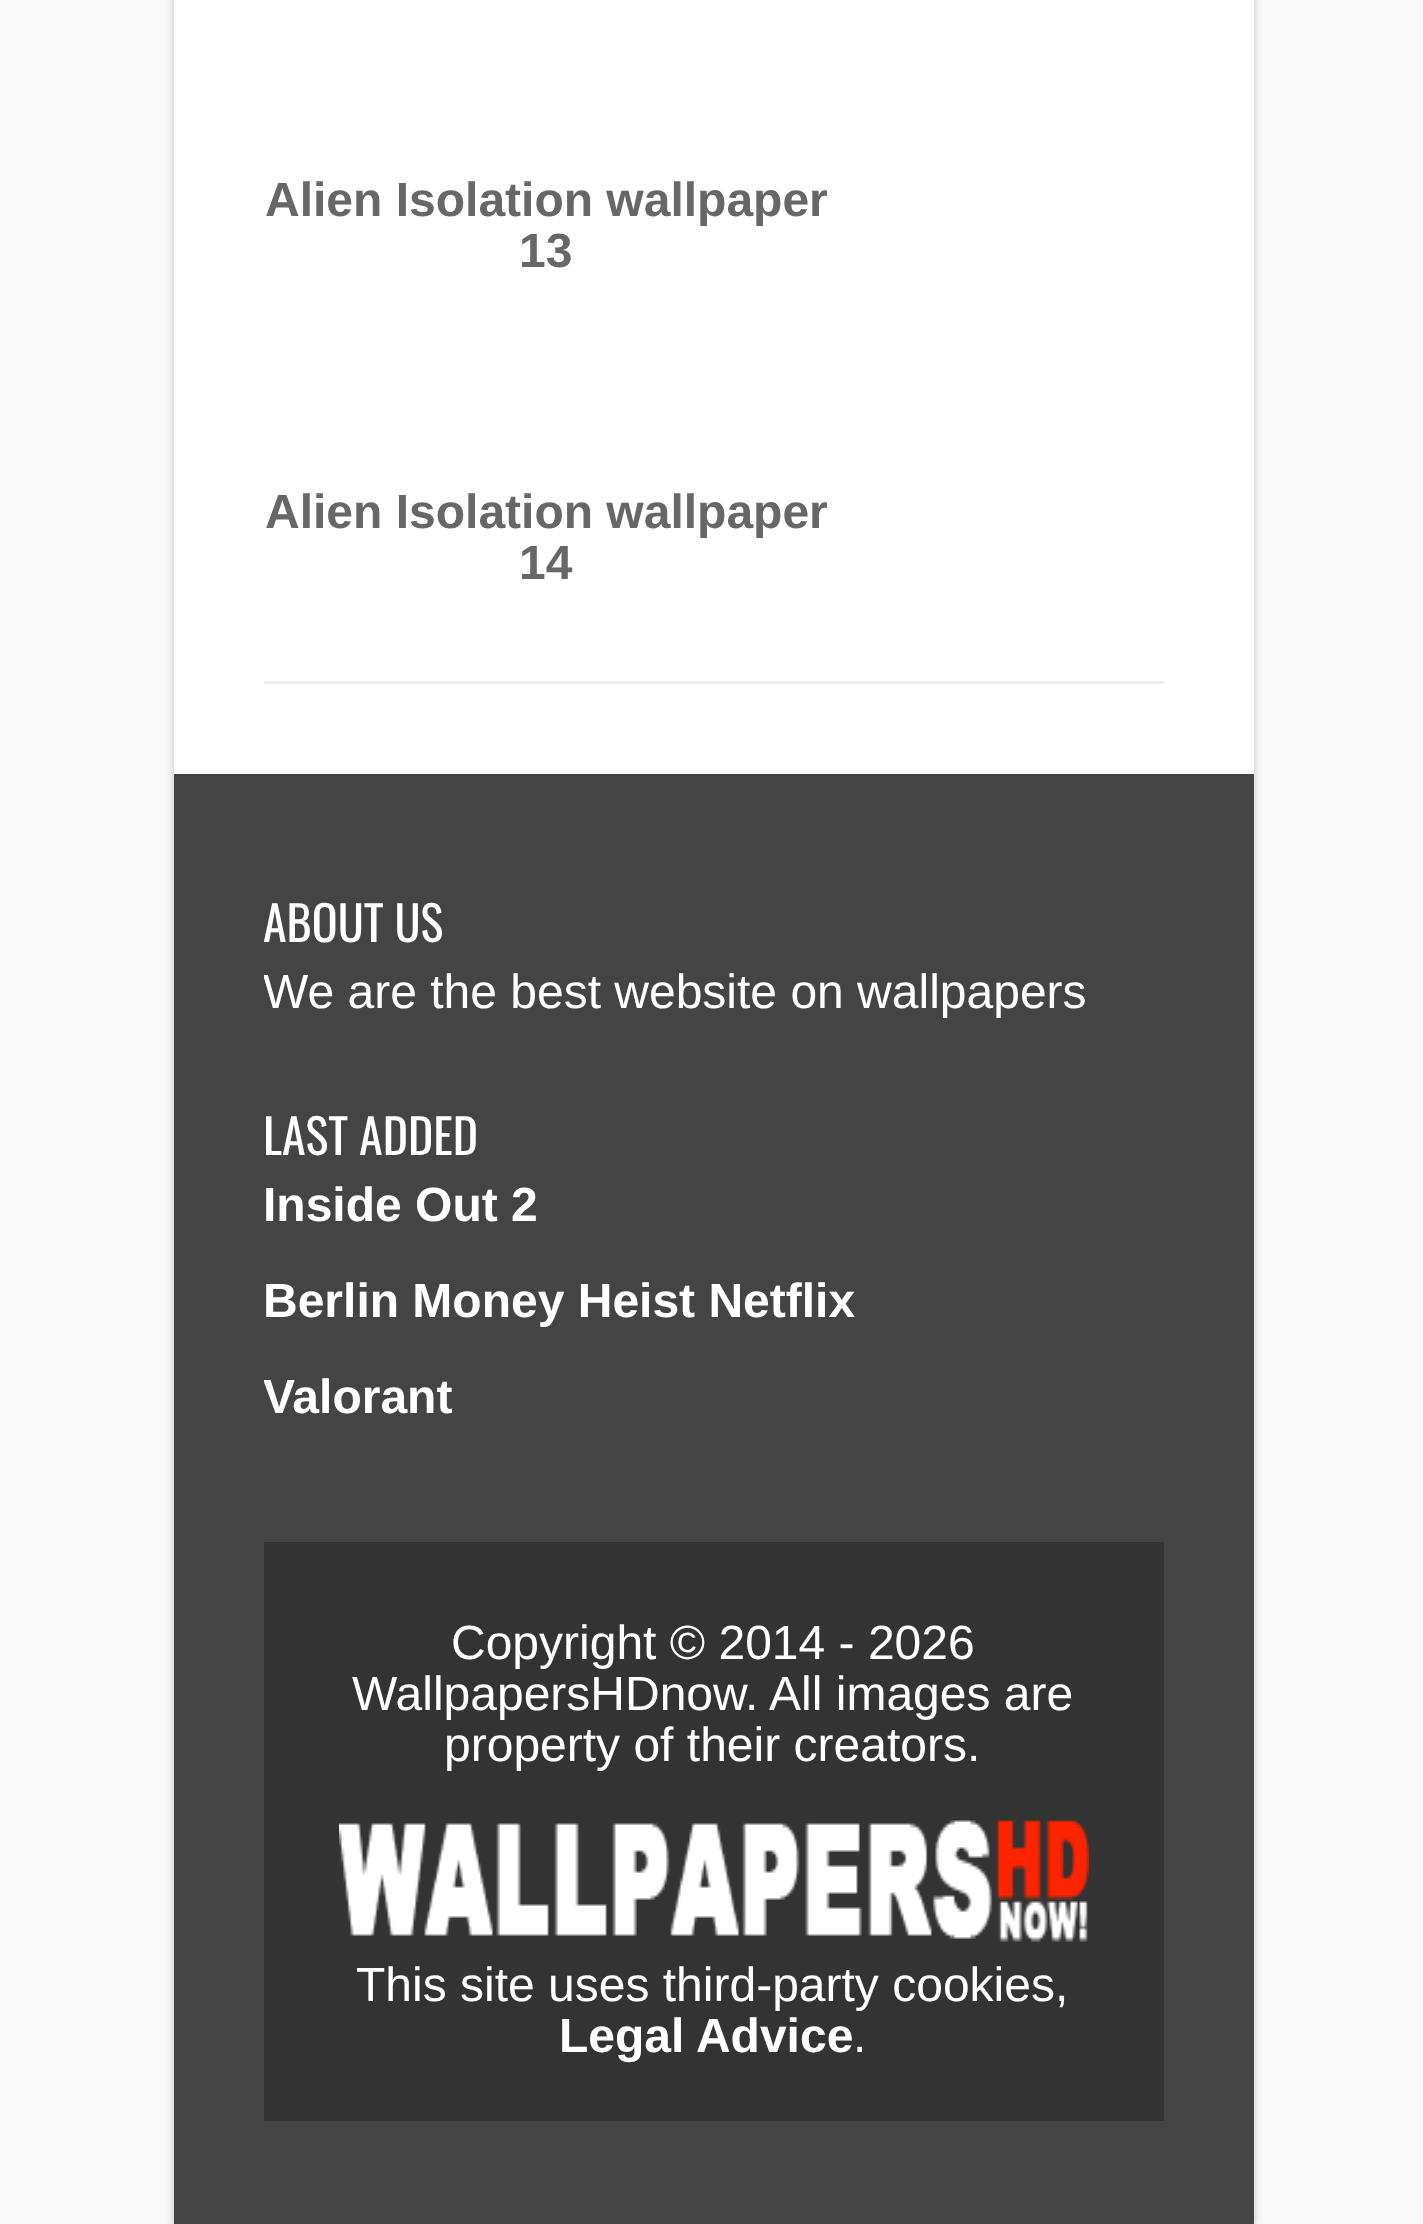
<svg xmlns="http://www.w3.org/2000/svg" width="1423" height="2224">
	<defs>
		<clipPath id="clip1"><rect x="264" y="774" width="900" height="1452" /></clipPath>
	</defs>
	<rect width="100%" height="100%" fill="#F8F8F8" />
	<rect x="174" y="-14" width="1080" height="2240" fill="#000000" fill-opacity="0.2" filter="blur(4.5px)" />
	<rect x="174" y="0" width="1080" height="774" fill="#FFFFFF" />
	<rect x="264" y="681" width="900" height="3" fill="#EEEEEE" />
	<g font-family="Liberation Sans" font-size="48" font-weight="700" fill="#676767">
		<text x="265" y="216">Alien Isolation wallpaper</text>
		<text x="519" y="267">13</text>
		<text x="265" y="528">Alien Isolation wallpaper</text>
		<text x="519" y="579">14</text>
	</g>
	<rect x="174" y="774" width="1080" height="1450" fill="#444444" />
	<g clip-path="url(#clip1)">
		<text x="263" y="942" font-family="Oswald" font-size="48" fill="#FFFFFF">ABOUT US</text>
		<text x="263" y="1008" font-family="Liberation Sans" font-size="48" fill="#FFFFFF">We are the best website on wallpapers</text>
	</g>
	<text x="263" y="1155" font-family="Oswald" font-size="48" fill="#FFFFFF">LAST ADDED</text>
	<g font-family="Liberation Sans" font-size="48" font-weight="700" fill="#FFFFFF">
		<text x="263" y="1221">Inside Out 2</text>
		<text x="263" y="1317">Berlin Money Heist Netflix</text>
	</g>
	<g clip-path="url(#clip1)">
		<text x="263" y="1413" font-family="Liberation Sans" font-size="48" font-weight="700" fill="#FFFFFF">Valorant</text>
	</g>
	<rect x="264" y="1542" width="900" height="579" fill="#333333" />
	<g font-family="Liberation Sans" font-size="48" fill="#FFFFFF">
		<text x="451" y="1659">Copyright © 2014 - 2026</text>
		<text x="352" y="1710">WallpapersHDnow. All images are</text>
		<text x="444" y="1761">property of their creators.</text>
	</g>
	<image x="339" y="1820" width="750" height="122" href="assets/img1.png" />
	<text x="356" y="2001" font-family="Liberation Sans" font-size="48" fill="#FFFFFF">This site uses third-party cookies,</text>
	<text x="559" y="2052" font-family="Liberation Sans" font-size="48" font-weight="700" fill="#FFFFFF">Legal Advice</text>
	<text x="853" y="2052" font-family="Liberation Sans" font-size="48" fill="#FFFFFF">.</text>
</svg>
